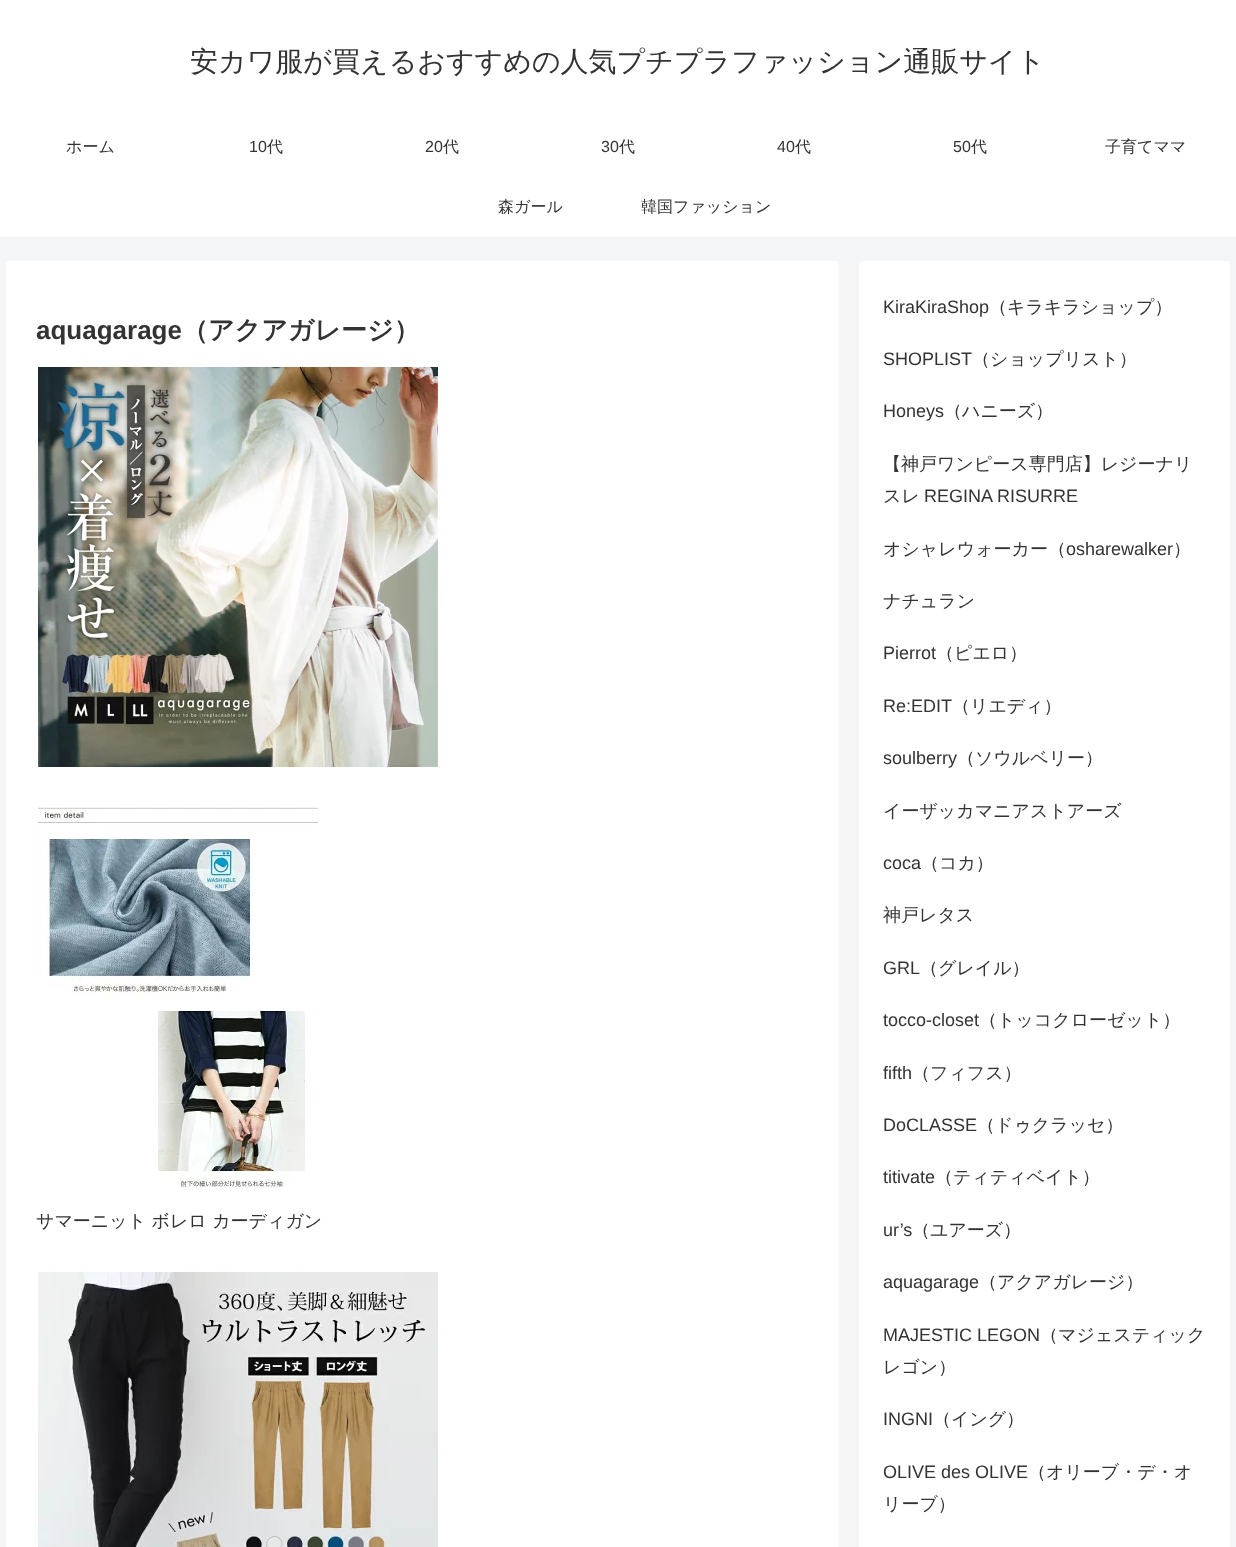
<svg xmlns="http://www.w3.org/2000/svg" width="1236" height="1547">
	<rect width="100%" height="100%" fill="#F4F5F7" />
	<rect x="0" y="0" width="1236" height="237" fill="#FFFFFF" />
	<text x="190" y="71" font-family="WenQuanYi Zen Hei" font-size="28" font-weight="500" fill="#333333">安カワ服が買えるおすすめの人気プチプラファッション通販サイト</text>
	<text x="66" y="152" font-family="WenQuanYi Zen Hei" font-size="16" font-weight="500" fill="#333333">ホーム</text>
	<text x="249" y="152" font-family="Liberation Sans" font-size="16" fill="#333333">10</text>
	<text x="267" y="152" font-family="WenQuanYi Zen Hei" font-size="16" font-weight="500" fill="#333333">代</text>
	<text x="425" y="152" font-family="Liberation Sans" font-size="16" fill="#333333">20</text>
	<text x="443" y="152" font-family="WenQuanYi Zen Hei" font-size="16" font-weight="500" fill="#333333">代</text>
	<text x="601" y="152" font-family="Liberation Sans" font-size="16" fill="#333333">30</text>
	<text x="619" y="152" font-family="WenQuanYi Zen Hei" font-size="16" font-weight="500" fill="#333333">代</text>
	<text x="777" y="152" font-family="Liberation Sans" font-size="16" fill="#333333">40</text>
	<text x="795" y="152" font-family="WenQuanYi Zen Hei" font-size="16" font-weight="500" fill="#333333">代</text>
	<text x="953" y="152" font-family="Liberation Sans" font-size="16" fill="#333333">50</text>
	<g font-family="WenQuanYi Zen Hei" font-size="16" font-weight="500" fill="#333333">
		<text x="971" y="152">代</text>
		<text x="1105" y="152">子育てママ</text>
		<text x="498" y="212">森ガール</text>
		<text x="641" y="212">韓国ファッション</text>
	</g>
	<rect x="6" y="261" width="833" height="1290" rx="4" fill="#FFFFFF" />
	<text x="36" y="339" font-family="Liberation Sans" font-size="26" font-weight="700" fill="#333333">aquagarage</text>
	<text x="182" y="339" font-family="WenQuanYi Zen Hei" font-size="26" font-weight="700" fill="#333333">（アクアガレージ）</text>
	<image x="38" y="367" width="400" height="400" href="assets/img1.png" />
	<image x="38" y="807" width="280" height="380" href="assets/img2.png" />
	<text x="36" y="1227" font-family="WenQuanYi Zen Hei" font-size="18" font-weight="500" fill="#333333">サマーニット ボレロ カーディガン</text>
	<image x="38" y="1272" width="400" height="275" href="assets/img3.png" />
	<rect x="859" y="261" width="371" height="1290" rx="4" fill="#FFFFFF" />
	<text x="883" y="313" font-family="Liberation Sans" font-size="18" fill="#333333">KiraKiraShop</text>
	<text x="989" y="313" font-family="WenQuanYi Zen Hei" font-size="18" font-weight="500" fill="#333333">（キラキラショップ）</text>
	<text x="883" y="365" font-family="Liberation Sans" font-size="18" fill="#333333">SHOPLIST</text>
	<text x="972" y="365" font-family="WenQuanYi Zen Hei" font-size="18" font-weight="500" fill="#333333">（ショップリスト）</text>
	<text x="883" y="417" font-family="Liberation Sans" font-size="18" fill="#333333">Honeys</text>
	<g font-family="WenQuanYi Zen Hei" font-size="18" font-weight="500" fill="#333333">
		<text x="944" y="417">（ハニーズ）</text>
		<text x="883" y="470">【神戸ワンピース専門店】レジーナリ</text>
		<text x="883" y="502">スレ</text>
	</g>
	<text x="924" y="502" font-family="Liberation Sans" font-size="18" fill="#333333">REGINA RISURRE</text>
	<text x="883" y="555" font-family="WenQuanYi Zen Hei" font-size="18" font-weight="500" fill="#333333">オシャレウォーカー（</text>
	<text x="1066" y="555" font-family="Liberation Sans" font-size="18" fill="#333333">osharewalker</text>
	<g font-family="WenQuanYi Zen Hei" font-size="18" font-weight="500" fill="#333333">
		<text x="1173" y="555">）</text>
		<text x="883" y="607">ナチュラン</text>
	</g>
	<text x="883" y="659" font-family="Liberation Sans" font-size="18" fill="#333333">Pierrot</text>
	<text x="936" y="659" font-family="WenQuanYi Zen Hei" font-size="18" font-weight="500" fill="#333333">（ピエロ）</text>
	<text x="883" y="712" font-family="Liberation Sans" font-size="18" fill="#333333">Re:EDIT</text>
	<text x="952" y="712" font-family="WenQuanYi Zen Hei" font-size="18" font-weight="500" fill="#333333">（リエディ）</text>
	<text x="883" y="764" font-family="Liberation Sans" font-size="18" fill="#333333">soulberry</text>
	<g font-family="WenQuanYi Zen Hei" font-size="18" font-weight="500" fill="#333333">
		<text x="957" y="764">（ソウルベリー）</text>
		<text x="883" y="817">イーザッカマニアストアーズ</text>
	</g>
	<text x="883" y="869" font-family="Liberation Sans" font-size="18" fill="#333333">coca</text>
	<g font-family="WenQuanYi Zen Hei" font-size="18" font-weight="500" fill="#333333">
		<text x="921" y="869">（コカ）</text>
		<text x="883" y="921">神戸レタス</text>
	</g>
	<text x="883" y="974" font-family="Liberation Sans" font-size="18" fill="#333333">GRL</text>
	<text x="920" y="974" font-family="WenQuanYi Zen Hei" font-size="18" font-weight="500" fill="#333333">（グレイル）</text>
	<text x="883" y="1026" font-family="Liberation Sans" font-size="18" fill="#333333">tocco-closet</text>
	<text x="979" y="1026" font-family="WenQuanYi Zen Hei" font-size="18" font-weight="500" fill="#333333">（トッコクローゼット）</text>
	<text x="883" y="1079" font-family="Liberation Sans" font-size="18" fill="#333333">fifth</text>
	<text x="912" y="1079" font-family="WenQuanYi Zen Hei" font-size="18" font-weight="500" fill="#333333">（フィフス）</text>
	<text x="883" y="1131" font-family="Liberation Sans" font-size="18" fill="#333333">DoCLASSE</text>
	<text x="977" y="1131" font-family="WenQuanYi Zen Hei" font-size="18" font-weight="500" fill="#333333">（ドゥクラッセ）</text>
	<text x="883" y="1183" font-family="Liberation Sans" font-size="18" fill="#333333">titivate</text>
	<text x="935" y="1183" font-family="WenQuanYi Zen Hei" font-size="18" font-weight="500" fill="#333333">（ティティベイト）</text>
	<text x="883" y="1236" font-family="Liberation Sans" font-size="18" fill="#333333">ur’s</text>
	<text x="912" y="1236" font-family="WenQuanYi Zen Hei" font-size="18" font-weight="500" fill="#333333">（ユアーズ）</text>
	<text x="883" y="1288" font-family="Liberation Sans" font-size="18" fill="#333333">aquagarage</text>
	<text x="979" y="1288" font-family="WenQuanYi Zen Hei" font-size="18" font-weight="500" fill="#333333">（アクアガレージ）</text>
	<text x="883" y="1341" font-family="Liberation Sans" font-size="18" fill="#333333">MAJESTIC LEGON</text>
	<g font-family="WenQuanYi Zen Hei" font-size="18" font-weight="500" fill="#333333">
		<text x="1040" y="1341">（マジェスティック</text>
		<text x="883" y="1373">レゴン）</text>
	</g>
	<text x="883" y="1425" font-family="Liberation Sans" font-size="18" fill="#333333">INGNI</text>
	<text x="933" y="1425" font-family="WenQuanYi Zen Hei" font-size="18" font-weight="500" fill="#333333">（イング）</text>
	<text x="883" y="1478" font-family="Liberation Sans" font-size="18" fill="#333333">OLIVE des OLIVE</text>
	<g font-family="WenQuanYi Zen Hei" font-size="18" font-weight="500" fill="#333333">
		<text x="1028" y="1478">（オリーブ・デ・オ</text>
		<text x="883" y="1510">リーブ）</text>
	</g>
</svg>
